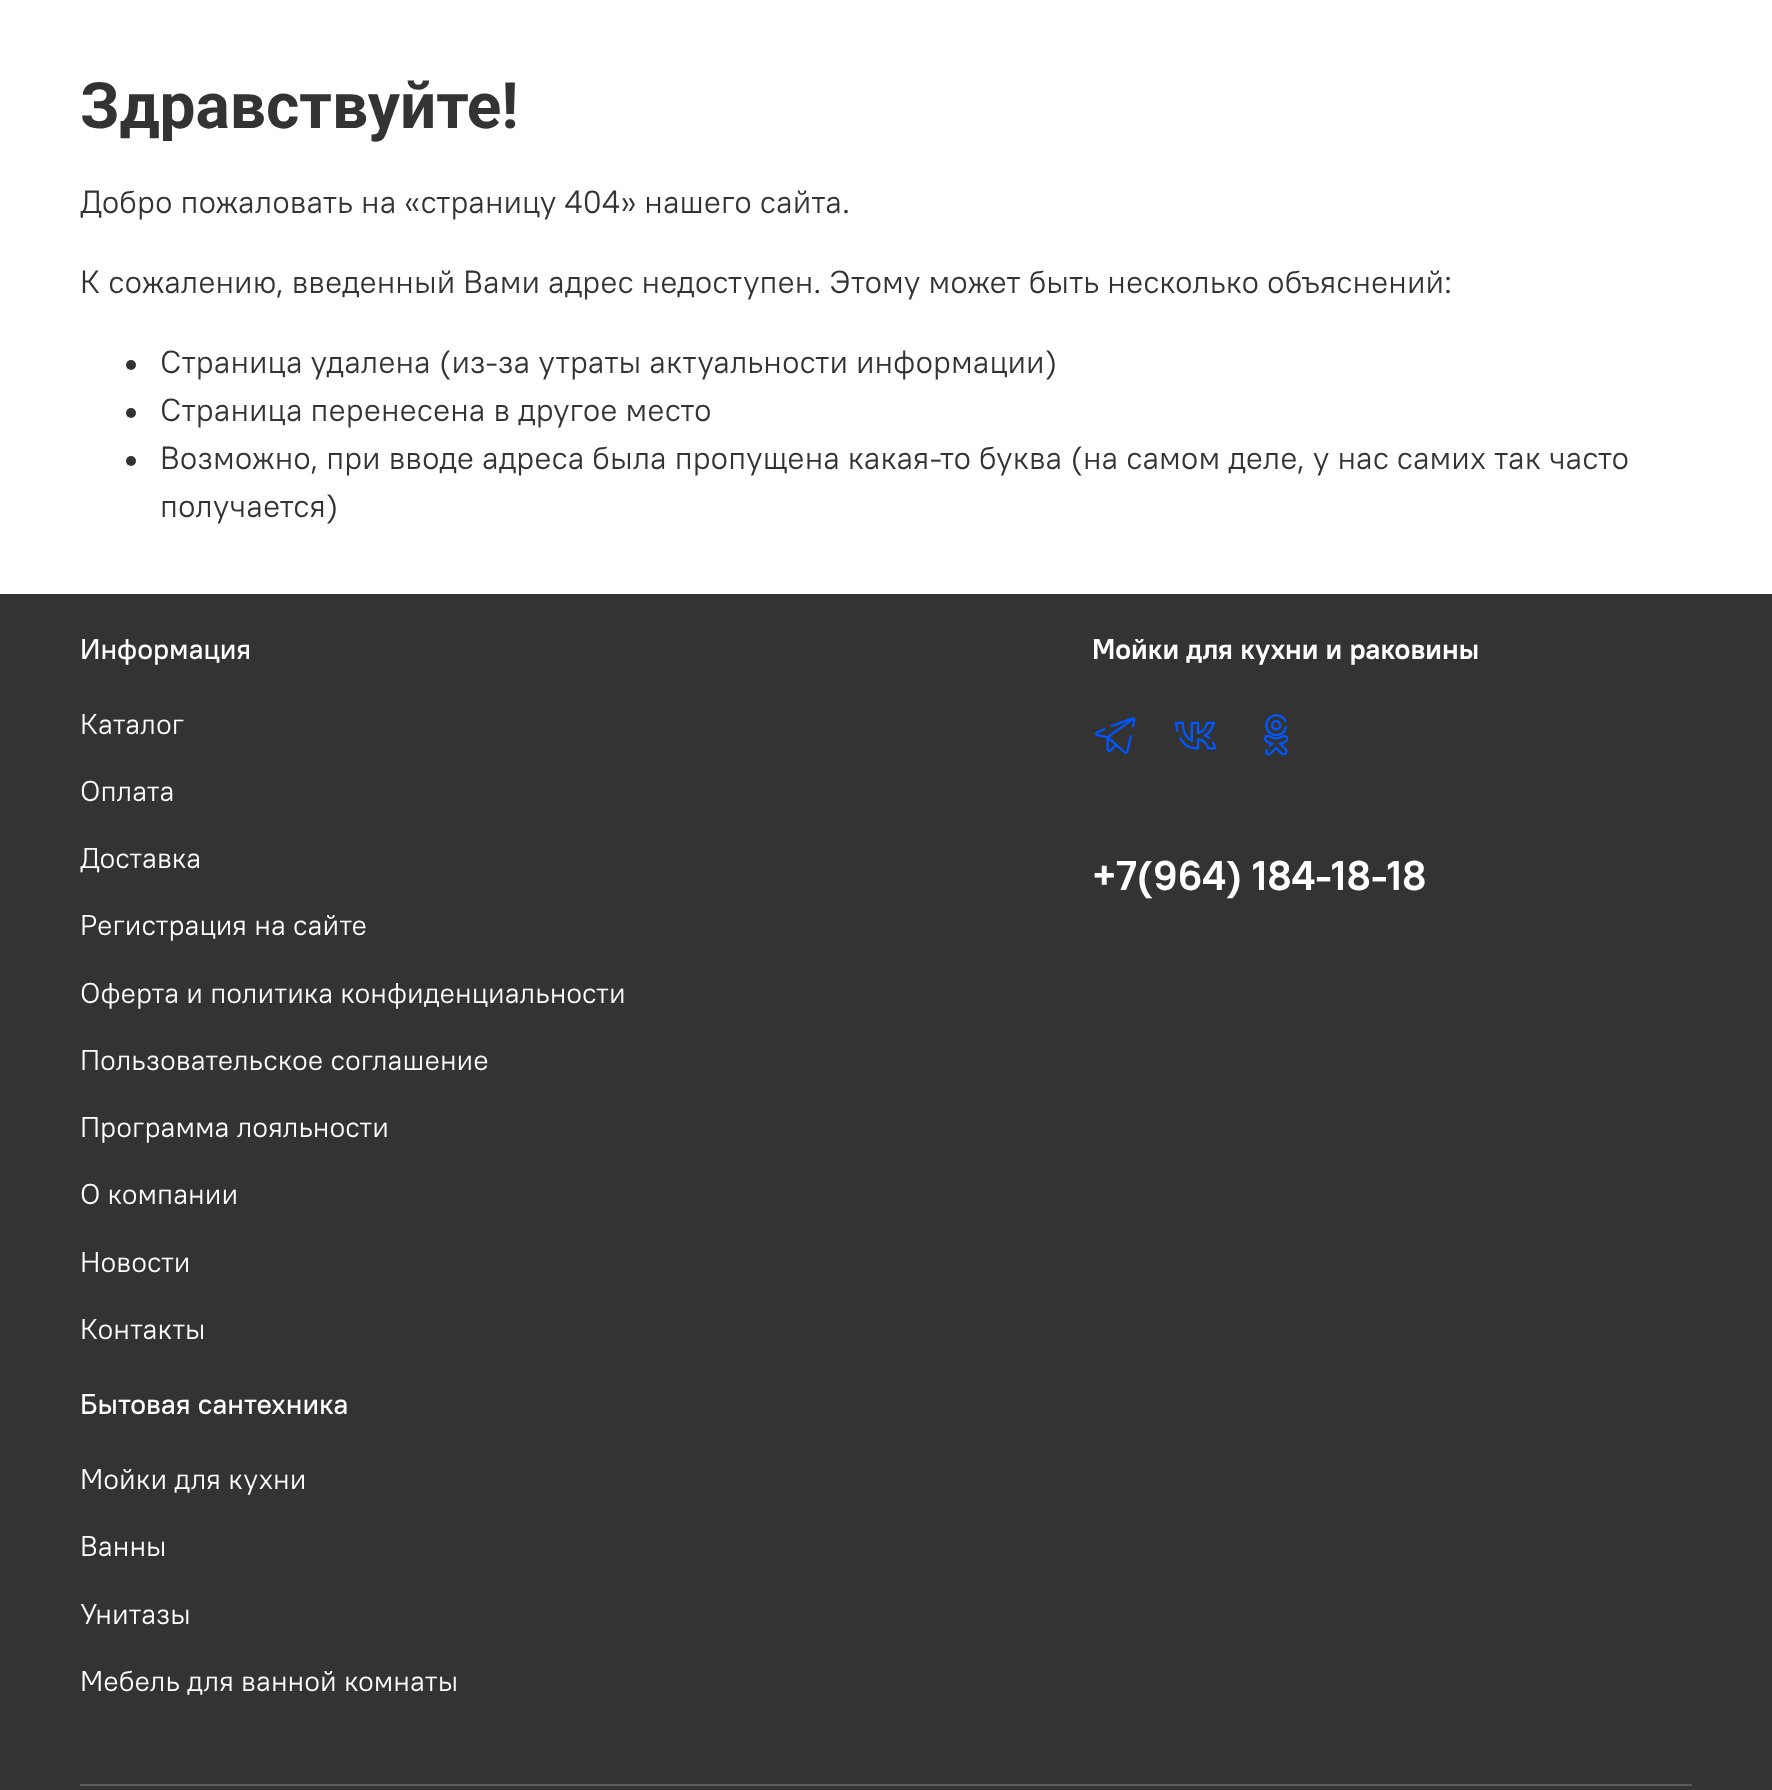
<svg xmlns="http://www.w3.org/2000/svg" width="1772" height="1790">
	<rect width="100%" height="100%" fill="#FFFFFF" />
	<text x="80" y="128" font-family="Roboto" font-size="64" font-weight="700" fill="#333333">Здравствуйте!</text>
	<g font-family="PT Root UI" font-size="32" fill="#333333">
		<text x="80" y="213">Добро пожаловать на «страницу 404» нашего сайта.</text>
		<text x="80" y="293">К сожалению, введенный Вами адрес недоступен. Этому может быть несколько объяснений:</text>
	</g>
	<circle cx="131" cy="365" r="5" fill="#333333" />
	<text x="160" y="373" font-family="PT Root UI" font-size="32" fill="#333333">Страница удалена (из-за утраты актуальности информации)</text>
	<circle cx="131" cy="413" r="5" fill="#333333" />
	<text x="160" y="421" font-family="PT Root UI" font-size="32" fill="#333333">Страница перенесена в другое место</text>
	<circle cx="131" cy="461" r="5" fill="#333333" />
	<g font-family="PT Root UI" font-size="32" fill="#333333">
		<text x="160" y="469">Возможно, при вводе адреса была пропущена какая-то буква (на самом деле, у нас самих так часто</text>
		<text x="160" y="517">получается)</text>
	</g>
	<rect x="0" y="594" width="1772" height="1196" fill="#333333" />
	<text x="80" y="659" font-family="PT Root UI" font-size="28.75" font-weight="500" fill="#FFFFFF">Информация</text>
	<g font-family="PT Root UI" font-size="28.75" fill="#FFFFFF">
		<text x="80" y="734">Каталог</text>
		<text x="80" y="801">Оплата</text>
		<text x="80" y="868">Доставка</text>
		<text x="80" y="935">Регистрация на сайте</text>
		<text x="80" y="1003">Оферта и политика конфиденциальности</text>
		<text x="80" y="1070">Пользовательское соглашение</text>
		<text x="80" y="1137">Программа лояльности</text>
		<text x="80" y="1204">О компании</text>
		<text x="80" y="1272">Новости</text>
		<text x="80" y="1339">Контакты</text>
	</g>
	<text x="80" y="1414" font-family="PT Root UI" font-size="28.75" font-weight="500" fill="#FFFFFF">Бытовая сантехника</text>
	<g font-family="PT Root UI" font-size="28.75" fill="#FFFFFF">
		<text x="80" y="1489">Мойки для кухни</text>
		<text x="80" y="1556">Ванны</text>
		<text x="80" y="1624">Унитазы</text>
		<text x="80" y="1691">Мебель для ванной комнаты</text>
	</g>
	<text x="1092" y="659" font-family="PT Root UI" font-size="28.75" font-weight="700" fill="#FFFFFF">Мойки для кухни и раковины</text>
	<image x="1095" y="717" width="41" height="37" href="assets/img1.png" />
	<image x="1175" y="721" width="42" height="29" href="assets/img2.png" />
	<image x="1264" y="714" width="25" height="42" href="assets/img3.png" />
	<text x="1092" y="890" font-family="PT Root UI" font-size="41.5" font-weight="700" fill="#FFFFFF">+7(964) 184-18-18</text>
	<rect x="80" y="1784" width="1612" height="2" fill="#5C5C5C" />
</svg>
